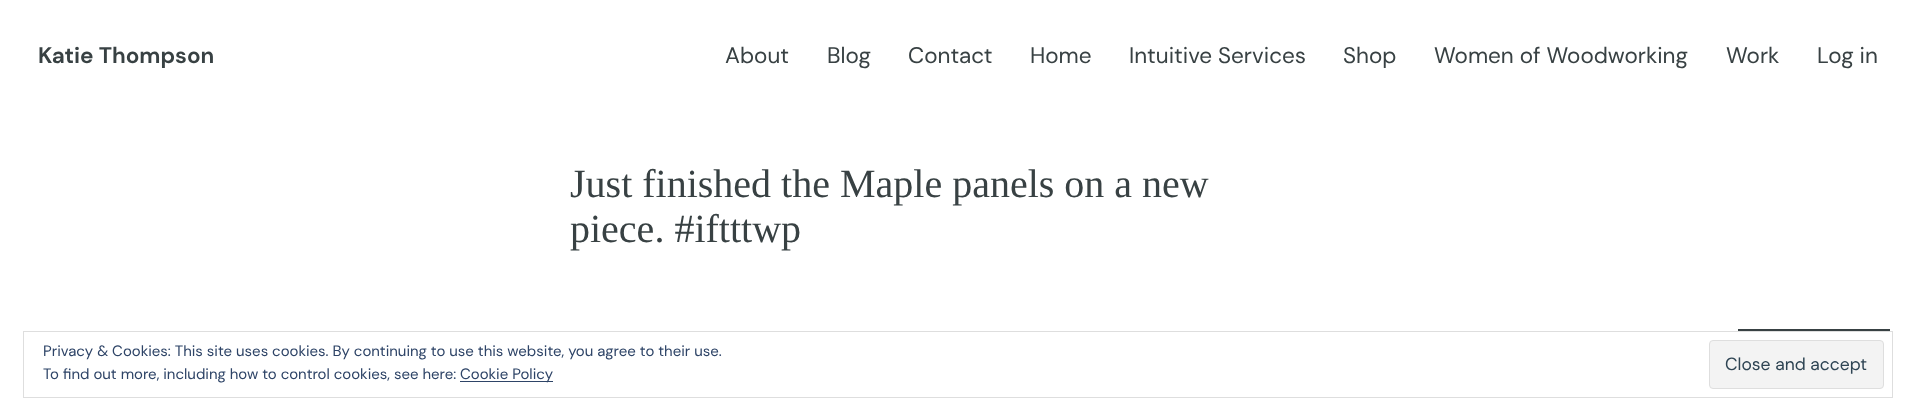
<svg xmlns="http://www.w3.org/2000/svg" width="1915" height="419">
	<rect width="100%" height="100%" fill="#FFFFFF" />
	<text x="38" y="63" font-family="DM Sans" font-size="22.5" font-weight="700" fill="#384143">Katie Thompson</text>
	<g font-family="DM Sans" font-size="22.5" fill="#384143">
		<text x="725" y="63">About</text>
		<text x="827" y="63">Blog</text>
		<text x="908" y="63">Contact</text>
		<text x="1030" y="63">Home</text>
		<text x="1129" y="63">Intuitive Services</text>
		<text x="1343" y="63">Shop</text>
		<text x="1434" y="63">Women of Woodworking</text>
		<text x="1726" y="63">Work</text>
		<text x="1817" y="63">Log in</text>
	</g>
	<g font-family="Liberation Serif" font-size="40" fill="#384143">
		<text x="570" y="197">Just finished the Maple panels on a new</text>
		<text x="570" y="242">piece. #iftttwp</text>
	</g>
	<rect x="1738" y="329" width="152" height="2" fill="#384143" />
	<rect x="23.5" y="331.5" width="1869" height="66" fill="none" stroke="#DEDEDE" />
	<text x="43" y="356" font-family="DM Sans" font-size="15" fill="#2E4467">Privacy &amp; Cookies: This site uses cookies. By continuing to use this website, you agree to their use.</text>
	<rect x="1709.5" y="340.5" width="174" height="48" rx="3.5" fill="#F3F3F3" stroke="#DEDEDE" />
	<text x="1725" y="370" font-family="DM Sans" font-size="17.5" fill="#2E4453">Close and accept</text>
	<text x="43" y="379" font-family="DM Sans" font-size="15" fill="#2E4467">To find out more, including how to control cookies, see here:</text>
	<rect x="460" y="381" width="93" height="1" fill="#2E4467" />
	<text x="460" y="379" font-family="DM Sans" font-size="15" fill="#2E4467">Cookie Policy</text>
</svg>
